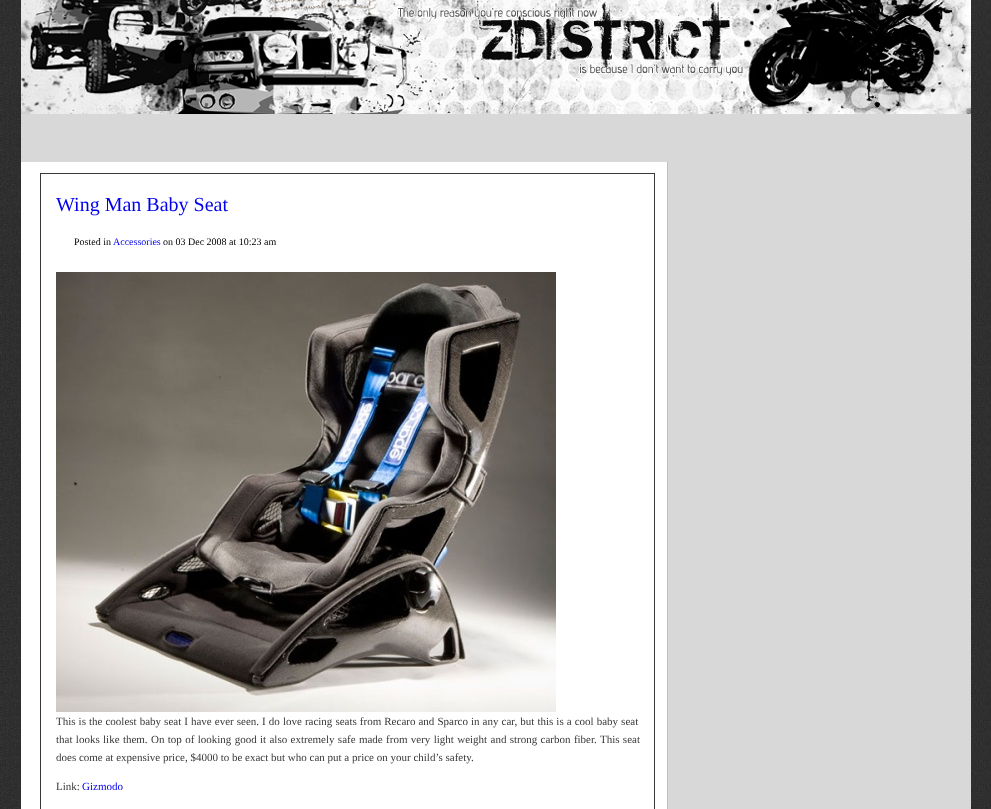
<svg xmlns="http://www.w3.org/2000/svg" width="991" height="809">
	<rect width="100%" height="100%" fill="#FFFFFF" />
	<image x="0" y="0" width="991" height="809" href="assets/img1.png" />
	<image x="21" y="0" width="950" height="114" href="assets/img2.png" />
	<rect x="21" y="114" width="950" height="48" fill="#D8D8D8" />
	<image x="21" y="162" width="950" height="1" href="assets/img3.png" />
	<image x="21" y="163" width="950" height="646" href="assets/img4.png" />
	<rect x="40.5" y="173.5" width="614" height="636" fill="none" stroke="#393938" />
	<text x="56" y="211" font-family="Liberation Serif" font-size="20" fill="#0000EE">Wing Man Baby Seat</text>
	<text x="74" y="245" font-family="Liberation Serif" font-size="10" fill="#000000">Posted in</text>
	<text x="113" y="245" font-family="Liberation Serif" font-size="10" fill="#0000EE">Accessories</text>
	<text x="163" y="245" font-family="Liberation Serif" font-size="10" fill="#000000">on 03 Dec 2008 at 10:23 am</text>
	<image x="56" y="272" width="500" height="440" href="assets/img5.png" />
	<g font-family="Liberation Serif" font-size="11" fill="#393938">
		<text x="56" y="725" word-spacing="0.3">This is the coolest baby seat I have ever seen. I do love racing seats from Recaro and Sparco in any car, but this is a cool baby seat</text>
		<text x="56" y="743" word-spacing="0.6">that looks like them. On top of looking good it also extremely safe made from very light weight and strong carbon fiber. This seat</text>
		<text x="56" y="761">does come at expensive price, $4000 to be exact but who can put a price on your child’s safety.</text>
		<text x="56" y="790">Link:</text>
	</g>
	<text x="82" y="790" font-family="Liberation Serif" font-size="11" fill="#0000EE">Gizmodo</text>
</svg>
